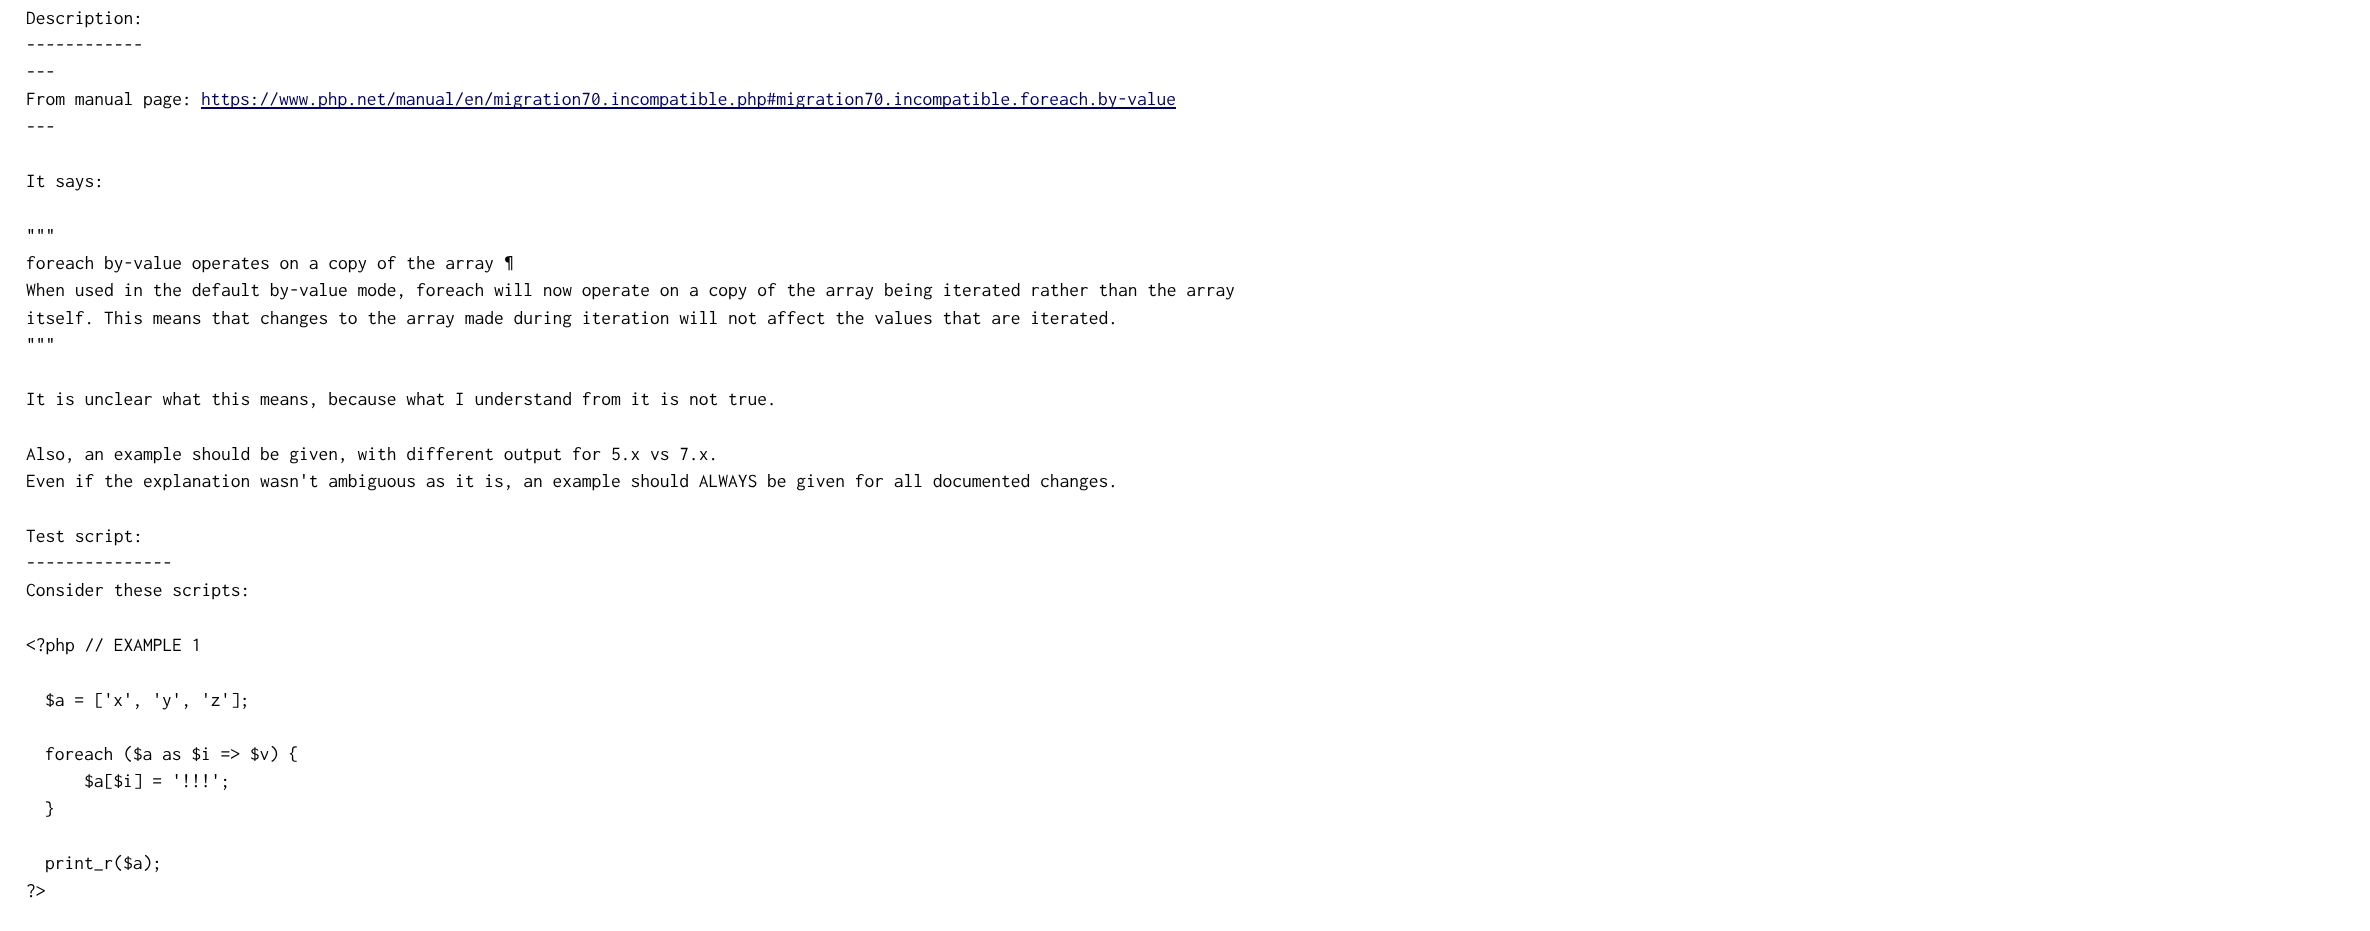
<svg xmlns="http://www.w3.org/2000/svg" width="2370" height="931">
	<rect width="100%" height="100%" fill="#FFFFFF" />
	<g font-family="Inconsolata" font-size="19.5" fill="#000000">
		<text x="26" y="24">Description:</text>
		<text x="26" y="51">------------</text>
		<text x="26" y="78">---</text>
		<text x="26" y="105">From manual page:</text>
	</g>
	<rect x="201" y="107" width="975" height="2" fill="#000066" />
	<text x="201" y="105" font-family="Inconsolata" font-size="19.5" fill="#000066">https://www.php.net/manual/en/migration70.incompatible.php#migration70.incompatible.foreach.by-value</text>
	<g font-family="Inconsolata" font-size="19.5" fill="#000000">
		<text x="26" y="133">---</text>
		<text x="26" y="187">It says:</text>
		<text x="26" y="242">"""</text>
		<text x="26" y="269">foreach by-value operates on a copy of the array ¶</text>
		<text x="26" y="296">When used in the default by-value mode, foreach will now operate on a copy of the array being iterated rather than the array</text>
		<text x="26" y="324">itself. This means that changes to the array made during iteration will not affect the values that are iterated.</text>
		<text x="26" y="351">"""</text>
		<text x="26" y="405">It is unclear what this means, because what I understand from it is not true.</text>
		<text x="26" y="460">Also, an example should be given, with different output for 5.x vs 7.x.</text>
		<text x="26" y="487">Even if the explanation wasn't ambiguous as it is, an example should ALWAYS be given for all documented changes.</text>
		<text x="26" y="542">Test script:</text>
		<text x="26" y="569">---------------</text>
		<text x="26" y="596">Consider these scripts:</text>
		<text x="26" y="651">&lt;?php // EXAMPLE 1</text>
		<text x="45" y="706">$a = ['x', 'y', 'z'];</text>
		<text x="45" y="760">foreach ($a as $i =&gt; $v) {</text>
		<text x="84" y="787">$a[$i] = '!!!';</text>
		<text x="45" y="815">}</text>
		<text x="45" y="869">print_r($a);</text>
		<text x="26" y="897">?&gt;</text>
	</g>
</svg>
